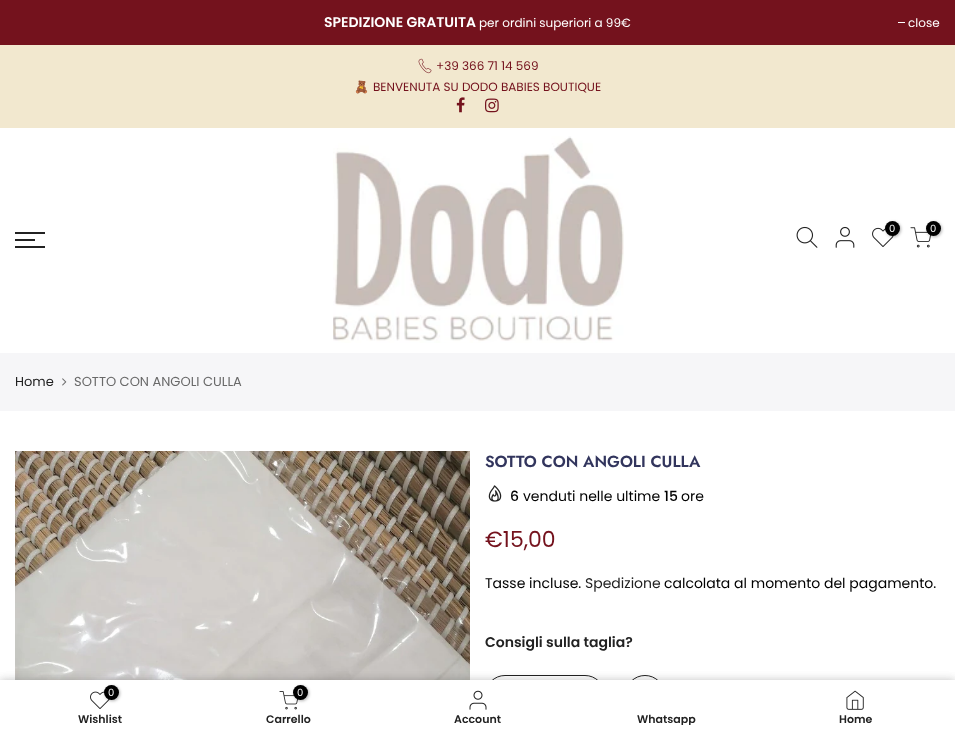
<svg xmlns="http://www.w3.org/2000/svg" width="955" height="735">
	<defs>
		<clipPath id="clip1"><rect x="582" y="714" width="169" height="11" /></clipPath>
	</defs>
	<rect width="100%" height="100%" fill="#FFFFFF" />
	<rect x="0" y="0" width="955" height="45" fill="#74121D" />
	<text x="324" y="27" font-family="Poppins" font-size="14" font-weight="600" fill="#FFFFFF">SPEDIZIONE GRATUITA</text>
	<text x="479" y="27" font-family="Poppins" font-size="12" fill="#FFFFFF">per ordini superiori a 99€</text>
	<rect x="898" y="22" width="7" height="1" fill="#FFFFFF" />
	<text x="908" y="27" font-family="Poppins" font-size="12" fill="#FFFFFF">close</text>
	<rect x="0" y="45" width="955" height="83" fill="#F2E8CF" />
	<image x="418" y="58" width="14" height="16" href="assets/img1.png" />
	<text x="436" y="70" font-family="Poppins" font-size="12" fill="#74121D">+39 366 71 14 569</text>
	<text x="354" y="91" font-family="Noto Color Emoji" font-size="12" fill="#74121D">🧸</text>
	<text x="373" y="91" font-family="Poppins" font-size="12" fill="#74121D">BENVENUTA SU DODO BABIES BOUTIQUE</text>
	<image x="456" y="97" width="9" height="16" href="assets/img2.png" />
	<image x="485" y="98" width="14" height="15" href="assets/img3.png" />
	<image x="333" y="136" width="291" height="207" href="assets/img4.png" />
	<image x="796" y="226" width="22" height="22" href="assets/img5.png" />
	<image x="835" y="226" width="20" height="22" href="assets/img6.png" />
	<image x="872" y="227" width="22" height="20" href="assets/img7.png" />
	<rect x="886" y="222" width="15" height="15" rx="7.5" fill="#000000" fill-opacity="0.3" filter="blur(1.5px)" />
	<circle cx="892.5" cy="228.5" r="7.5" fill="#000000" />
	<text x="889" y="232" font-family="Poppins" font-size="10" fill="#FFFFFF">0</text>
	<image x="910" y="227" width="21" height="21" href="assets/img8.png" />
	<rect x="927" y="222" width="15" height="15" rx="7.5" fill="#000000" fill-opacity="0.3" filter="blur(1.5px)" />
	<circle cx="933.5" cy="228.5" r="7.5" fill="#000000" />
	<text x="930" y="232" font-family="Poppins" font-size="10" fill="#FFFFFF">0</text>
	<rect x="15" y="232" width="30" height="2" fill="#222222" />
	<rect x="15" y="239" width="20" height="2" fill="#222222" />
	<rect x="15" y="246" width="30" height="2" fill="#222222" />
	<rect x="0" y="353" width="955" height="58" fill="#F6F6F8" />
	<text x="15" y="386" font-family="Poppins" font-size="13" fill="#222222">Home</text>
	<image x="62" y="378" width="5" height="8" href="assets/img9.png" />
	<text x="74" y="386" font-family="Poppins" font-size="13" fill="#696969">SOTTO CON ANGOLI CULLA</text>
	<image x="15" y="451" width="455" height="229" href="assets/img10.png" />
	<text x="485" y="467" font-family="Jost" font-size="16" font-weight="600" fill="#32355D">SOTTO CON ANGOLI CULLA</text>
	<image x="488" y="485" width="14" height="17" href="assets/img11.png" />
	<text x="510" y="501" font-family="Poppins" font-size="14" font-weight="500" fill="#000000">6</text>
	<text x="523" y="501" font-family="Poppins" font-size="14" fill="#000000">venduti nelle ultime</text>
	<text x="664" y="501" font-family="Poppins" font-size="14" font-weight="500" fill="#000000">15</text>
	<text x="681" y="501" font-family="Poppins" font-size="14" fill="#000000">ore</text>
	<text x="485" y="547" font-family="Poppins" font-size="22" fill="#74121D">€15,00</text>
	<text x="485" y="588" font-family="Poppins" font-size="14" fill="#000000">Tasse incluse.</text>
	<text x="585" y="588" font-family="Poppins" font-size="14" fill="#222222">Spedizione</text>
	<text x="664" y="588" font-family="Poppins" font-size="14" fill="#000000">calcolata al momento del pagamento.</text>
	<text x="485" y="647" font-family="Poppins" font-size="14" font-weight="600" fill="#222222">Consigli sulla taglia?</text>
	<rect x="485.5" y="675.5" width="119" height="39" rx="19.5" fill="none" stroke="#222222" />
	<circle cx="645" cy="695" r="19.5" fill="none" stroke="#222222" />
	<rect x="0" y="680" width="955" height="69" fill="#000000" fill-opacity="0.12" filter="blur(4.5px)" />
	<rect x="0" y="680" width="955" height="55" fill="#000000" fill-opacity="0.12" filter="blur(4.5px)" />
	<rect x="0" y="680" width="955" height="55" fill="#FFFFFF" />
	<image x="90" y="691" width="20" height="18" href="assets/img12.png" />
	<rect x="105" y="686" width="15" height="15" rx="7.5" fill="#000000" fill-opacity="0.3" filter="blur(1.5px)" />
	<circle cx="111.5" cy="692.5" r="7.5" fill="#000000" />
	<text x="108" y="696" font-family="Poppins" font-size="10" fill="#FFFFFF">0</text>
	<text x="78" y="723" font-family="Poppins" font-size="11" font-weight="600" fill="#222222">Wishlist</text>
	<image x="279" y="691" width="19" height="19" href="assets/img13.png" />
	<rect x="294" y="686" width="15" height="15" rx="7.5" fill="#000000" fill-opacity="0.3" filter="blur(1.5px)" />
	<circle cx="300.5" cy="692.5" r="7.5" fill="#000000" />
	<text x="297" y="696" font-family="Poppins" font-size="10" fill="#FFFFFF">0</text>
	<text x="266" y="723" font-family="Poppins" font-size="11" font-weight="600" fill="#222222">Carrello</text>
	<image x="469" y="690" width="18" height="20" href="assets/img14.png" />
	<text x="454" y="723" font-family="Poppins" font-size="11" font-weight="600" fill="#222222">Account</text>
	<g clip-path="url(#clip1)">
		<text x="637" y="723" font-family="Poppins" font-size="11" font-weight="600" fill="#222222">Whatsapp</text>
	</g>
	<image x="846" y="690" width="18" height="20" href="assets/img15.png" />
	<text x="839" y="723" font-family="Poppins" font-size="11" font-weight="600" fill="#222222">Home</text>
</svg>
